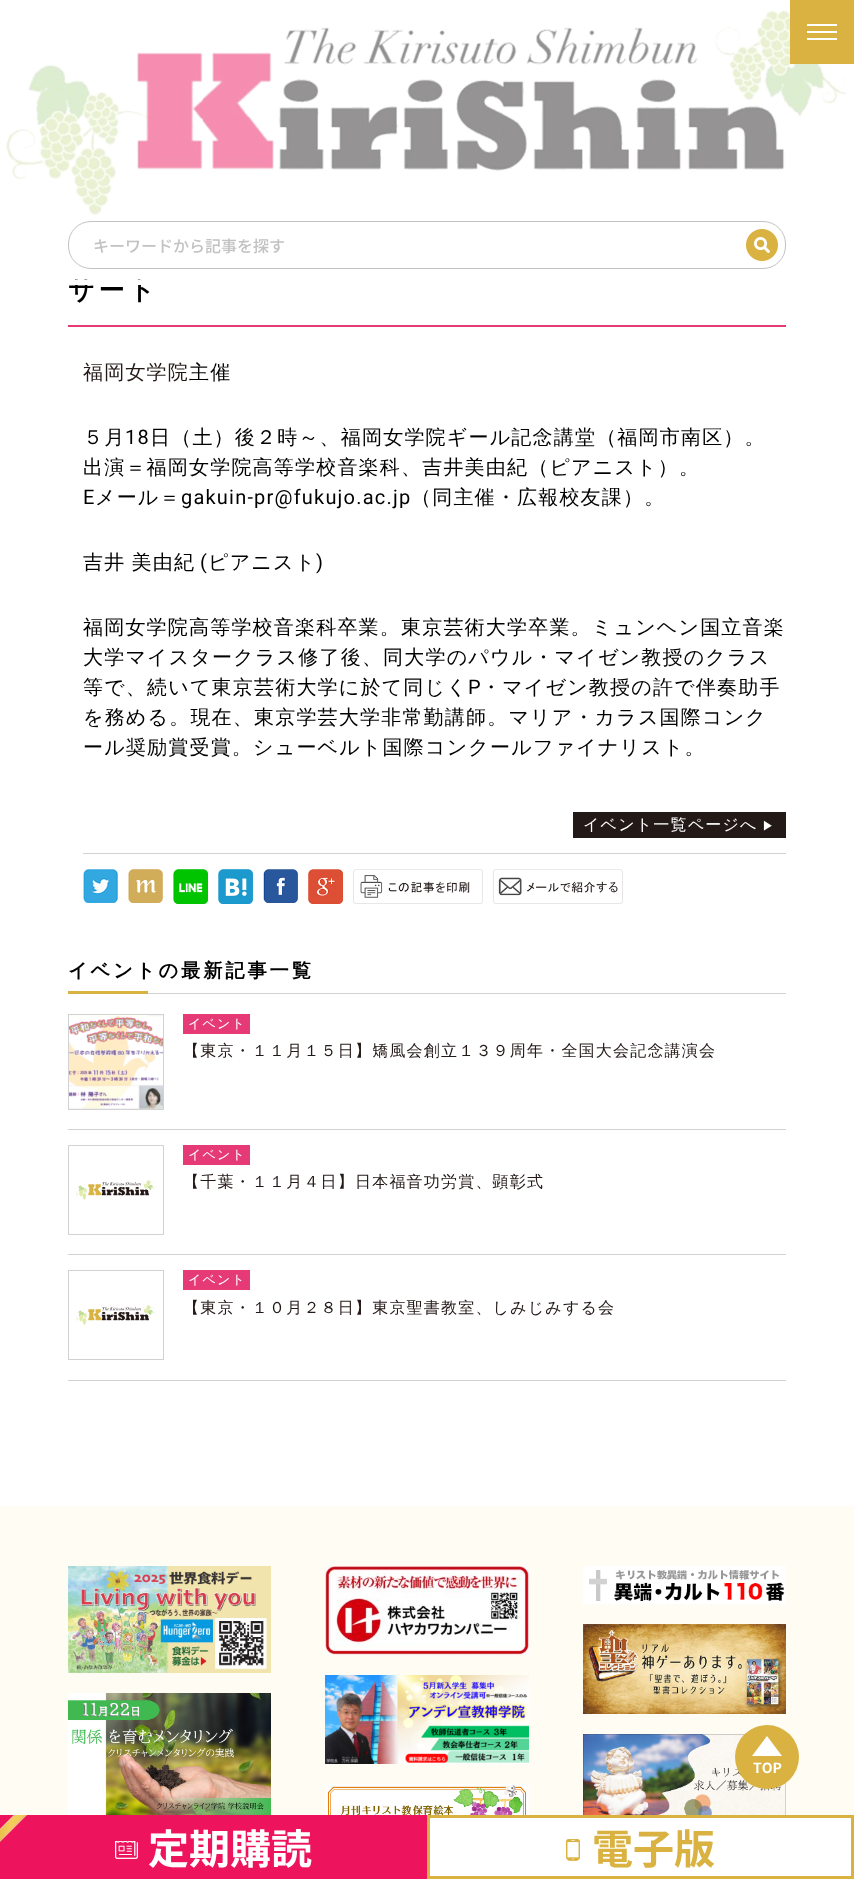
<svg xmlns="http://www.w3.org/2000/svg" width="854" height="1879">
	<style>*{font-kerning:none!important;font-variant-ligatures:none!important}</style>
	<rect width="100%" height="100%" fill="#FFFFFF" />
	<text x="68" y="299" font-family="WenQuanYi Zen Hei" font-size="26" font-weight="700" letter-spacing="4" fill="#000000">サート</text>
	<rect x="75" y="280" width="66" height="5" fill="#FFFFFF" />
	<image x="6" y="10" width="841" height="206" href="assets/img1.png" />
	<rect x="790" y="0" width="64" height="64" fill="#D9B241" />
	<rect x="807" y="24" width="30" height="2" fill="#FFFFFF" />
	<rect x="807" y="31" width="30" height="2" fill="#FFFFFF" />
	<rect x="807" y="38" width="30" height="2" fill="#FFFFFF" />
	<rect x="68.5" y="221.5" width="717" height="47" rx="22.5" fill="none" stroke="#C2C2C2" />
	<text x="93" y="252" font-family="Noto Sans JP" font-size="16" font-weight="500" fill="#C2C2C2">キーワードから記事を探す</text>
	<image x="746" y="229" width="32" height="32" href="assets/img2.png" />
	<rect x="68" y="325" width="718" height="2" fill="#E63A77" />
	<text x="83" y="379" font-family="WenQuanYi Zen Hei" font-size="20" font-weight="500" letter-spacing="1.2" fill="#231917">福岡女学院</text>
	<g font-family="WenQuanYi Zen Hei" font-size="20" font-weight="500" letter-spacing="1.2" fill="#000000">
		<text x="189" y="379">主催</text>
		<text x="83" y="444">５月</text>
	</g>
	<text x="125" y="444" font-family="Roboto" font-size="20" letter-spacing="1.2" fill="#000000">18</text>
	<g font-family="WenQuanYi Zen Hei" font-size="20" font-weight="500" letter-spacing="1.2" fill="#000000">
		<text x="150" y="444">日（土）後２時～、福岡女学院ギール記念講堂（福岡市南区）。</text>
		<text x="83" y="474">出演＝福岡女学院高等学校音楽科、吉井美由紀（ピアニスト）。</text>
	</g>
	<text x="83" y="504" font-family="Roboto" font-size="20" letter-spacing="1.2" fill="#000000">E</text>
	<text x="95" y="504" font-family="WenQuanYi Zen Hei" font-size="20" font-weight="500" letter-spacing="1.2" fill="#000000">メール＝</text>
	<text x="181" y="504" font-family="Roboto" font-size="20" letter-spacing="1.2" fill="#000000">gakuin-pr@fukujo.ac.jp</text>
	<g font-family="WenQuanYi Zen Hei" font-size="20" font-weight="500" letter-spacing="1.2" fill="#000000">
		<text x="411" y="504">（同主催・広報校友課）。</text>
		<text x="83" y="569" word-spacing="-1">吉井 美由紀</text>
	</g>
	<text x="200" y="569" font-family="Roboto" font-size="20" letter-spacing="1.2" fill="#000000">(</text>
	<text x="208" y="569" font-family="WenQuanYi Zen Hei" font-size="20" font-weight="500" letter-spacing="1.2" fill="#000000">ピアニスト</text>
	<text x="316" y="569" font-family="Roboto" font-size="20" letter-spacing="1.2" fill="#000000">)</text>
	<g font-family="WenQuanYi Zen Hei" font-size="20" font-weight="500" letter-spacing="1.2" fill="#000000">
		<text x="83" y="634">福岡女学院高等学校音楽科卒業。東京芸術大学卒業。ミュンヘン国立音楽</text>
		<text x="83" y="664">大学マイスタークラス修了後、同大学のパウル・マイゼン教授のクラス</text>
		<text x="83" y="694">等で、続いて東京芸術大学に於て同じく</text>
	</g>
	<text x="468" y="694" font-family="Roboto" font-size="20" letter-spacing="1.2" fill="#000000">P</text>
	<g font-family="WenQuanYi Zen Hei" font-size="20" font-weight="500" letter-spacing="1.2" fill="#000000">
		<text x="481" y="694">・マイゼン教授の許で伴奏助手</text>
		<text x="83" y="724">を務める。現在、東京学芸大学非常勤講師。マリア・カラス国際コンク</text>
		<text x="83" y="754">ール奨励賞受賞。シューベルト国際コンクールファイナリスト。</text>
	</g>
	<rect x="573" y="812" width="213" height="26" fill="#231917" />
	<text x="583" y="830" font-family="WenQuanYi Zen Hei" font-size="16" font-weight="500" letter-spacing="1.2" fill="#FFFFFF">イベント一覧ページへ</text>
	<text x="762" y="830" font-family="WenQuanYi Zen Hei" font-size="12" font-weight="500" letter-spacing="1.2" fill="#FFFFFF">▶︎</text>
	<rect x="83" y="853" width="703" height="1" fill="#D2D2D2" />
	<image x="83" y="869" width="35" height="34" href="assets/img3.png" />
	<image x="128" y="869" width="35" height="34" href="assets/img4.png" />
	<image x="173" y="869" width="35" height="35" href="assets/img5.png" />
	<image x="218" y="869" width="35" height="35" href="assets/img6.png" />
	<image x="263" y="869" width="35" height="34" href="assets/img7.png" />
	<image x="308" y="869" width="35" height="35" href="assets/img8.png" />
	<image x="353" y="869" width="130" height="35" href="assets/img9.png" />
	<image x="493" y="869" width="130" height="35" href="assets/img10.png" />
	<rect x="148" y="993" width="638" height="1" fill="#D2D2D2" />
	<text x="68" y="977" font-family="WenQuanYi Zen Hei" font-size="19.25" font-weight="700" letter-spacing="2.9" fill="#000000">イベントの最新記事一覧</text>
	<rect x="68" y="991" width="80" height="3" fill="#D9B342" />
	<rect x="68" y="1129" width="718" height="1" fill="#D2D2D2" />
	<rect x="68.5" y="1014.5" width="95" height="95" fill="none" stroke="#D2D2D2" />
	<image x="69" y="1015" width="94" height="94" href="assets/img11.png" />
	<rect x="183" y="1014" width="67" height="20" fill="#E63A77" />
	<text x="188" y="1028" font-family="WenQuanYi Zen Hei" font-size="13" font-weight="500" letter-spacing="1.2" fill="#FFFFFF">イベント</text>
	<text x="183" y="1056" font-family="WenQuanYi Zen Hei" font-size="16" font-weight="500" letter-spacing="1.2" fill="#231917">【東京・１１月１５日】矯風会創立１３９周年・全国大会記念講演会</text>
	<rect x="68" y="1254" width="718" height="1" fill="#D2D2D2" />
	<rect x="68.5" y="1145.5" width="95" height="89" fill="none" stroke="#D2D2D2" />
	<image x="76" y="1180" width="80" height="20" href="assets/img12.png" />
	<rect x="183" y="1145" width="67" height="20" fill="#E63A77" />
	<text x="188" y="1159" font-family="WenQuanYi Zen Hei" font-size="13" font-weight="500" letter-spacing="1.2" fill="#FFFFFF">イベント</text>
	<text x="183" y="1187" font-family="WenQuanYi Zen Hei" font-size="16" font-weight="500" letter-spacing="1.2" fill="#231917">【千葉・１１月４日】日本福音功労賞、顕彰式</text>
	<rect x="68" y="1380" width="718" height="1" fill="#D2D2D2" />
	<rect x="68.5" y="1270.5" width="95" height="89" fill="none" stroke="#D2D2D2" />
	<image x="76" y="1305" width="80" height="20" href="assets/img12.png" />
	<rect x="183" y="1270" width="67" height="20" fill="#E63A77" />
	<text x="188" y="1284" font-family="WenQuanYi Zen Hei" font-size="13" font-weight="500" letter-spacing="1.2" fill="#FFFFFF">イベント</text>
	<text x="183" y="1313" font-family="WenQuanYi Zen Hei" font-size="16" font-weight="500" letter-spacing="1.2" fill="#231917">【東京・１０月２８日】東京聖書教室、しみじみする会</text>
	<rect x="0" y="1506" width="854" height="309" fill="#FFFCF4" />
	<image x="68" y="1566" width="203" height="107" href="assets/img13.png" />
	<image x="325" y="1566" width="204" height="89" href="assets/img14.png" />
	<image x="583" y="1566" width="203" height="38" href="assets/img15.png" />
	<image x="68" y="1693" width="203" height="122" href="assets/img16.png" />
	<image x="325" y="1675" width="204" height="89" href="assets/img17.png" />
	<image x="583" y="1624" width="203" height="90" href="assets/img18.png" />
	<image x="325" y="1784" width="204" height="31" href="assets/img19.png" />
	<image x="583" y="1734" width="203" height="81" href="assets/img20.png" />
	<circle cx="767" cy="1757" r="32" fill="#D9B241" />
	<path d="M782 1756H752L767 1736Z" fill="#FFFFFF" />
	<text x="753" y="1773" font-family="Noto Sans JP" font-size="14" font-weight="700" fill="#FFFFFF">TOP</text>
	<rect x="0" y="1815" width="427" height="64" fill="#ED135C" />
	<image x="0" y="1815" width="27" height="27" href="assets/img21.png" />
	<image x="115" y="1841" width="23" height="18" href="assets/img22.png" />
	<text x="148" y="1864" font-family="Noto Sans JP" font-size="41" font-weight="700" fill="#FFFFFF">定期購読</text>
	<rect x="428.5" y="1816.5" width="424" height="61" fill="none" stroke="#D9B241" stroke-width="3" />
	<image x="566" y="1839" width="14" height="22" href="assets/img23.png" />
	<text x="592" y="1864" font-family="Noto Sans JP" font-size="41" font-weight="700" fill="#D9B241">電子版</text>
</svg>
